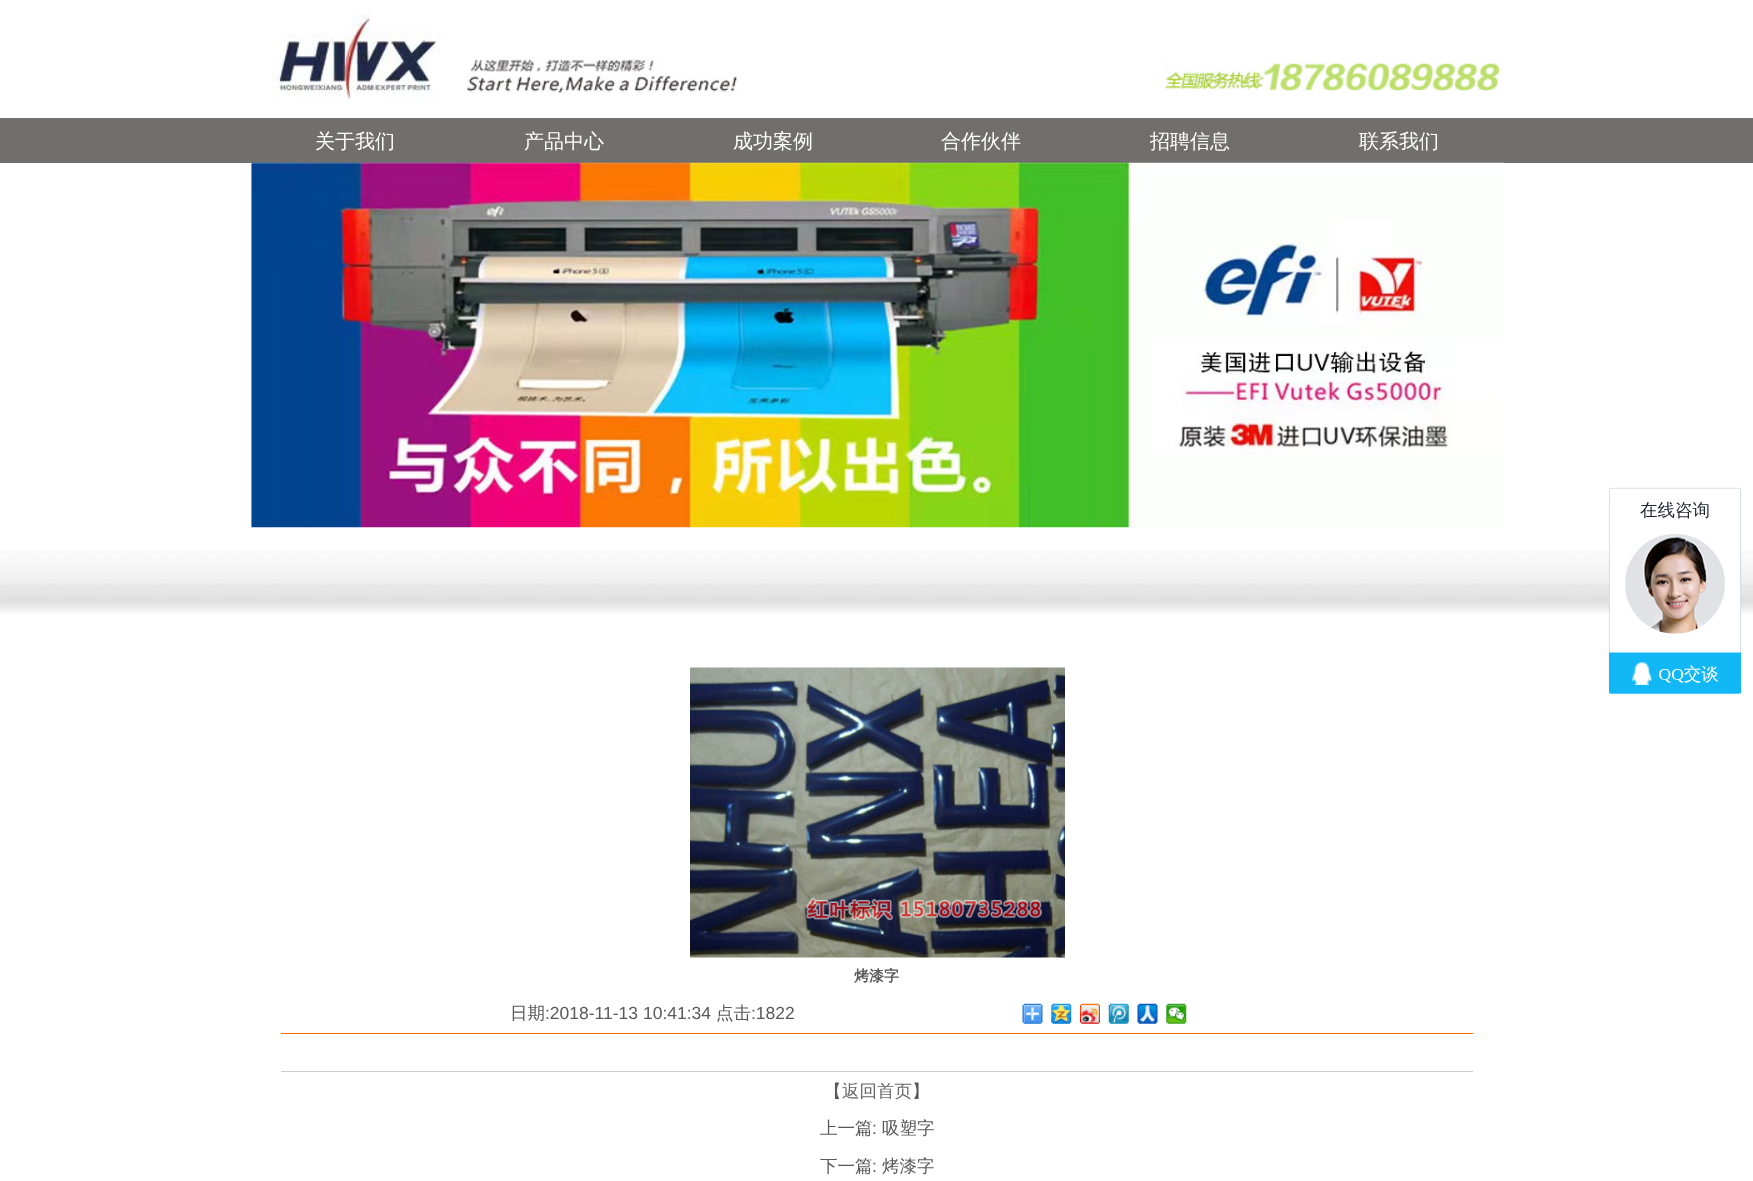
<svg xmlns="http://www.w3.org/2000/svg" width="1753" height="1181">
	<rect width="100%" height="100%" fill="#FFFFFF" />
	<rect x="0" y="118" width="1753" height="45" fill="#706F6D" />
	<image x="467" y="58" width="273" height="35" href="assets/img1.png" />
	<image x="271" y="14" width="170" height="85" href="assets/img2.png" />
	<image x="1164" y="60" width="337" height="32" href="assets/img3.png" />
	<g font-family="WenQuanYi Zen Hei" font-size="20" font-weight="500" fill="#FFFFFF">
		<text x="315" y="148">关于我们</text>
		<text x="524" y="148">产品中心</text>
		<text x="733" y="148">成功案例</text>
		<text x="941" y="148">合作伙伴</text>
		<text x="1150" y="148">招聘信息</text>
		<text x="1359" y="148">联系我们</text>
	</g>
	<image x="251" y="162" width="1253" height="366" href="assets/img4.png" />
	<image x="0" y="550" width="1753" height="64" href="assets/img6.png" />
	<image x="1608" y="487" width="134" height="207" href="assets/img5.png" />
	<image x="690" y="667" width="375" height="291" href="assets/img7.png" />
	<text x="854" y="981" font-family="WenQuanYi Zen Hei" font-size="15" font-weight="700" fill="#595959">烤漆字</text>
	<text x="510" y="1019" font-family="WenQuanYi Zen Hei" font-size="17.5" font-weight="500" fill="#595959">日期</text>
	<text x="545" y="1019" font-family="Liberation Sans" font-size="17.5" fill="#595959">:2018-11-13 10:41:34</text>
	<text x="716" y="1019" font-family="WenQuanYi Zen Hei" font-size="17.5" font-weight="500" fill="#595959">点击</text>
	<text x="751" y="1019" font-family="Liberation Sans" font-size="17.5" fill="#595959">:1822</text>
	<image x="1022" y="1003" width="21" height="21" href="assets/img8.png" />
	<image x="1051" y="1003" width="21" height="21" href="assets/img9.png" />
	<image x="1080" y="1003" width="20" height="21" href="assets/img10.png" />
	<image x="1108" y="1003" width="21" height="21" href="assets/img11.png" />
	<image x="1137" y="1003" width="21" height="21" href="assets/img12.png" />
	<image x="1166" y="1003" width="21" height="21" href="assets/img13.png" />
	<rect x="281" y="1033" width="1192" height="1" fill="#FF6600" />
	<rect x="281" y="1071" width="1192" height="1" fill="#CCCCCC" />
	<text x="824" y="1097" font-family="WenQuanYi Zen Hei" font-size="17.5" font-weight="500" fill="#595959">【</text>
	<text x="842" y="1097" font-family="WenQuanYi Zen Hei" font-size="17.5" font-weight="500" fill="#666666">返回首页</text>
	<g font-family="WenQuanYi Zen Hei" font-size="17.5" font-weight="500" fill="#595959">
		<text x="912" y="1097">】</text>
		<text x="820" y="1134">上一篇</text>
	</g>
	<text x="872" y="1134" font-family="Liberation Sans" font-size="17.5" fill="#595959">:</text>
	<g font-family="WenQuanYi Zen Hei" font-size="17.5" font-weight="500" fill="#595959">
		<text x="882" y="1134">吸塑字</text>
		<text x="820" y="1172">下一篇</text>
	</g>
	<text x="872" y="1172" font-family="Liberation Sans" font-size="17.5" fill="#595959">:</text>
	<text x="882" y="1172" font-family="WenQuanYi Zen Hei" font-size="17.5" font-weight="500" fill="#595959">烤漆字</text>
</svg>
